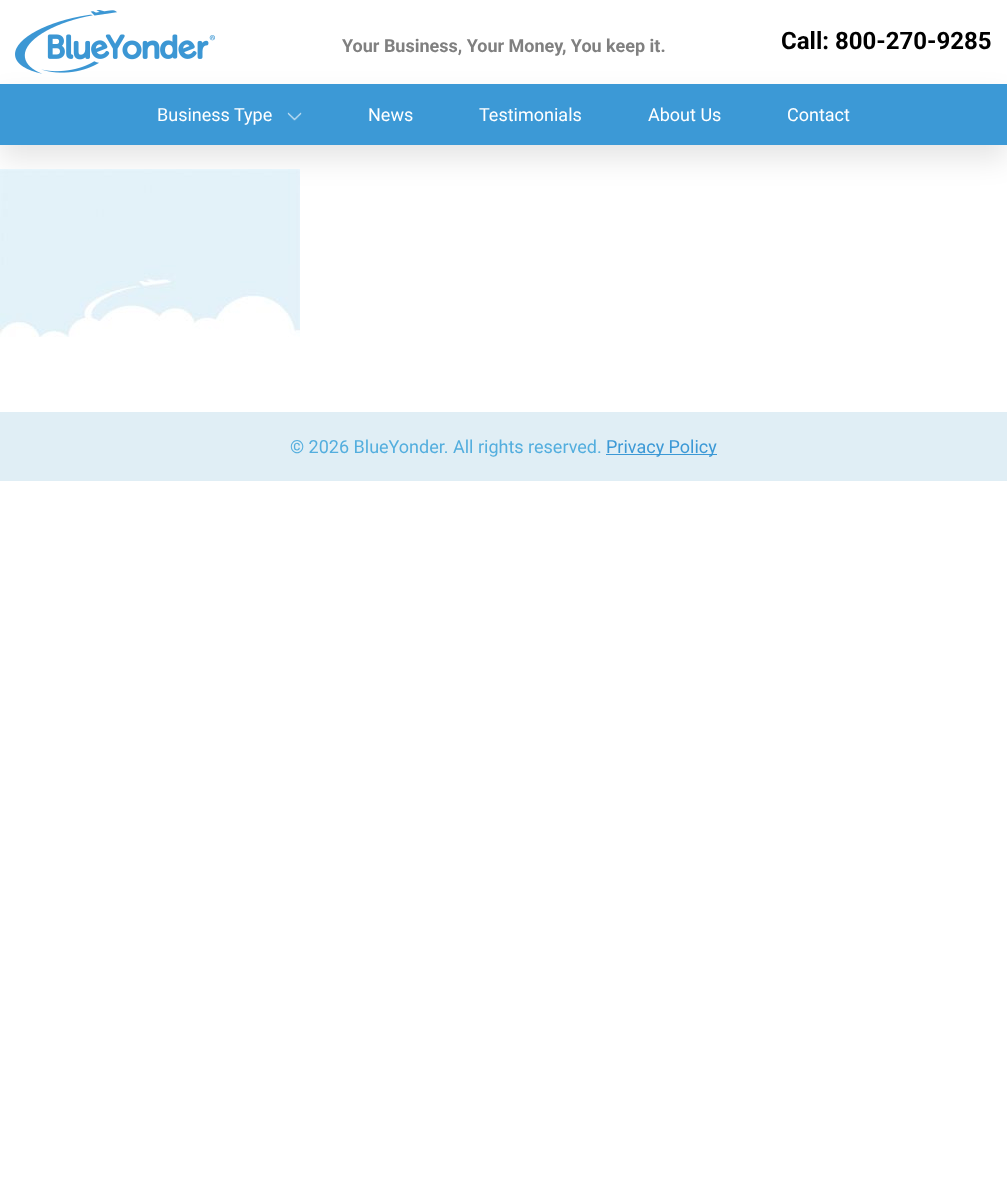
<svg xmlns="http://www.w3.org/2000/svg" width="1007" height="1187">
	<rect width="100%" height="100%" fill="#FFFFFF" />
	<rect x="0" y="98" width="1007" height="61" fill="#000000" fill-opacity="0.1" filter="blur(14px)" />
	<image x="15" y="10" width="200" height="64" href="assets/img1.png" />
	<text x="342" y="52" font-family="Roboto" font-size="18" font-weight="700" fill="#808080">Your Business, Your Money, You keep it.</text>
	<text x="781" y="49" font-family="Roboto" font-size="24" font-weight="700" fill="#000000">Call: 800-270-9285</text>
	<rect x="0" y="84" width="1007" height="61" fill="#3C99D6" />
	<text x="157" y="121" font-family="Roboto" font-size="18" fill="#FFFFFF">Business Type</text>
	<image x="287" y="112" width="15" height="9" href="assets/img2.png" />
	<g font-family="Roboto" font-size="18" fill="#FFFFFF">
		<text x="368" y="121">News</text>
		<text x="479" y="121">Testimonials</text>
		<text x="648" y="121">About Us</text>
		<text x="787" y="121">Contact</text>
	</g>
	<image x="0" y="169" width="300" height="168" href="assets/img3.png" />
	<rect x="0" y="412" width="1007" height="69" fill="#E0EEF5" />
	<text x="290" y="453" font-family="Roboto" font-size="18" fill="#53AEDE">© 2026 BlueYonder. All rights reserved.</text>
	<rect x="606" y="454" width="111" height="1" fill="#3C99D6" />
	<text x="606" y="453" font-family="Roboto" font-size="18" fill="#3C99D6">Privacy Policy</text>
</svg>
